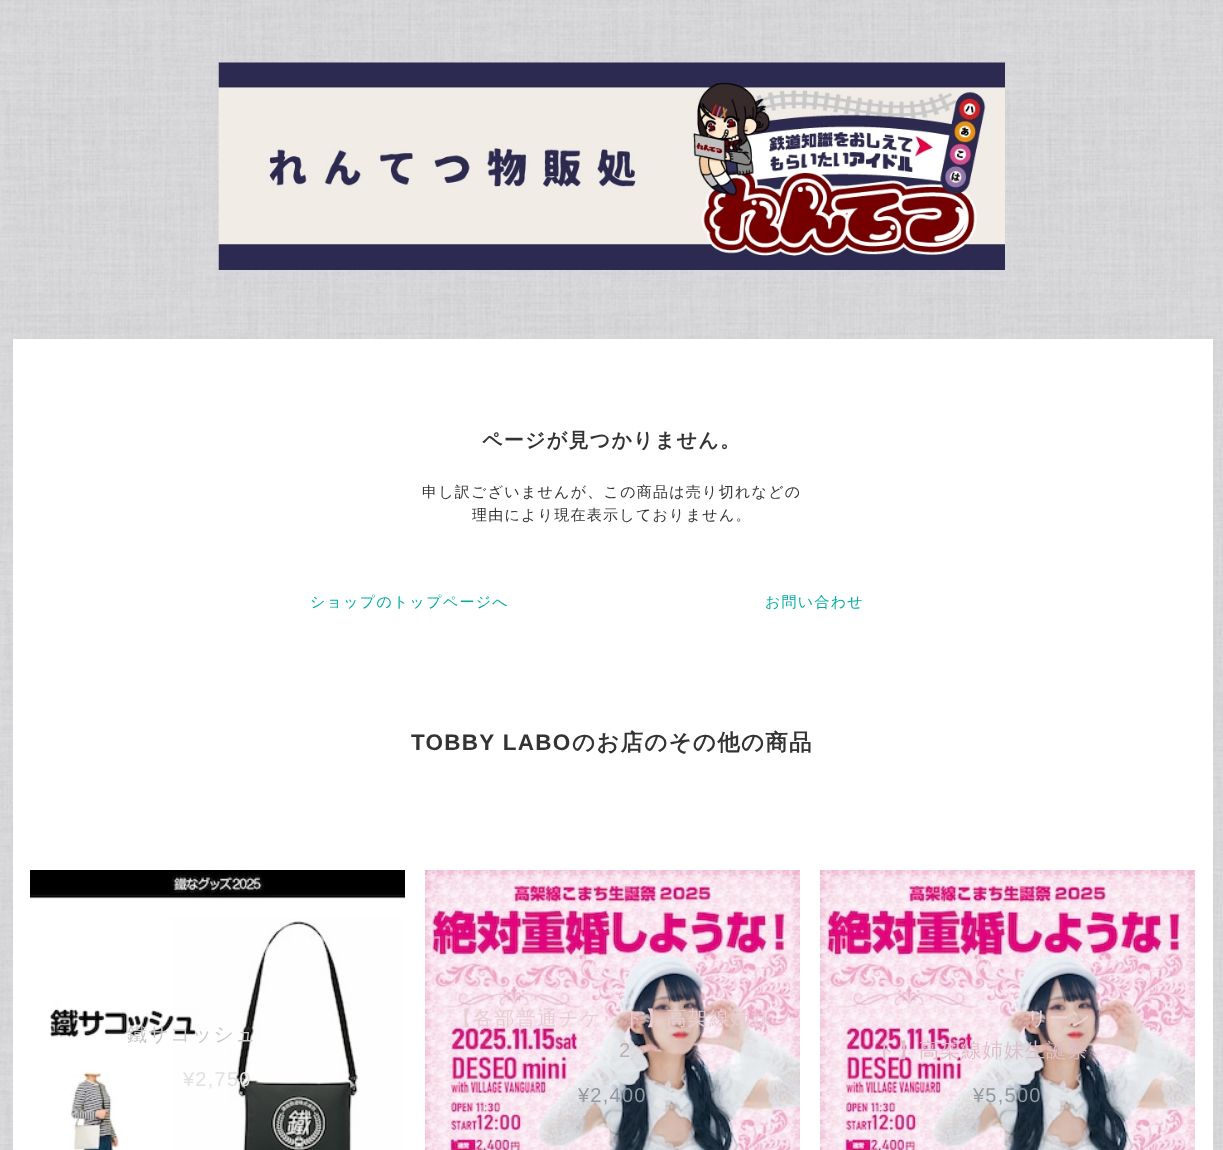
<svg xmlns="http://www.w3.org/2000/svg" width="1223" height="1150">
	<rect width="100%" height="100%" fill="#FFFFFF" />
	<image x="0" y="0" width="1223" height="1150" href="assets/img1.png" />
	<image x="218" y="62" width="787" height="208" href="assets/img2.png" />
	<rect x="13" y="339" width="1200" height="811" fill="#FFFFFF" />
	<text x="482" y="447" font-family="WenQuanYi Zen Hei" font-size="20" font-weight="700" letter-spacing="1.25" fill="#333333">ページが見つかりません。</text>
	<g font-family="WenQuanYi Zen Hei" font-size="15" font-weight="500" letter-spacing="1.25" fill="#333333">
		<text x="422" y="497">申し訳ございませんが、この商品は売り切れなどの</text>
		<text x="472" y="520">理由により現在表示しておりません。</text>
	</g>
	<g font-family="WenQuanYi Zen Hei" font-size="15" font-weight="500" letter-spacing="1.25" fill="#00AE9F">
		<text x="310" y="607">ショップのトップページへ</text>
		<text x="765" y="607">お問い合わせ</text>
	</g>
	<text x="411" y="750" font-family="Liberation Sans" font-size="22.5" font-weight="700" letter-spacing="1.25" fill="#333333">TOBBY LABO</text>
	<text x="572" y="750" font-family="WenQuanYi Zen Hei" font-size="22.5" font-weight="700" letter-spacing="1.25" fill="#333333">のお店のその他の商品</text>
	<image x="30" y="870" width="375" height="280" href="assets/img3.png" />
	<text x="127" y="1041" font-family="WenQuanYi Zen Hei" font-size="20" font-weight="500" letter-spacing="1.25" fill="#C9C9C9">鐵サコッシュ</text>
	<text x="183" y="1086" font-family="Liberation Sans" font-size="20" letter-spacing="1.25" fill="#E1E1E0">¥2,750</text>
	<image x="425" y="870" width="375" height="280" href="assets/img4.png" />
	<text x="452" y="1025" font-family="WenQuanYi Zen Hei" font-size="20" font-weight="500" letter-spacing="1.25" fill="#E7CED4">【各部普通チケット】高架線姉妹</text>
	<text x="619" y="1057" font-family="Liberation Sans" font-size="20" letter-spacing="1.25" fill="#C0AEAA">2</text>
	<text x="578" y="1102" font-family="Liberation Sans" font-size="20" letter-spacing="1.25" fill="#9199A1">¥2,400</text>
	<image x="820" y="870" width="375" height="280" href="assets/img5.png" />
	<text x="1027" y="1025" font-family="WenQuanYi Zen Hei" font-size="20" font-weight="500" letter-spacing="1.25" fill="#ECD6DC">リーン</text>
	<text x="876" y="1057" font-family="WenQuanYi Zen Hei" font-size="20" font-weight="500" letter-spacing="1.25" fill="#DEBEC8">ト】高架線姉妹生誕祭</text>
	<text x="973" y="1102" font-family="Liberation Sans" font-size="20" letter-spacing="1.25" fill="#9199A1">¥5,500</text>
</svg>
